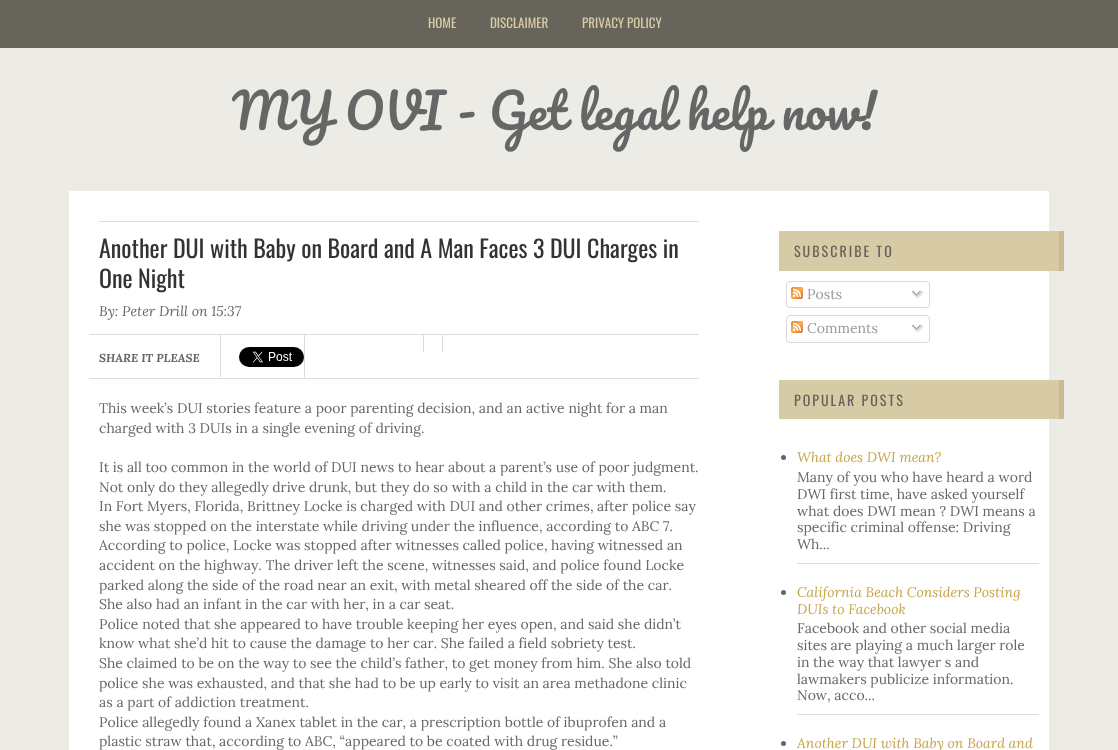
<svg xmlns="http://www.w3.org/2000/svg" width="1118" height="750">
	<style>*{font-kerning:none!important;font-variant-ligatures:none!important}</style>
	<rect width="100%" height="100%" fill="#EDEBE5" />
	<rect x="0" y="0" width="1118" height="48" fill="#67645C" />
	<g font-family="Oswald" font-size="13" fill="#D9CCA6">
		<text x="428" y="28">HOME</text>
		<text x="490" y="28">DISCLAIMER</text>
		<text x="582" y="28">PRIVACY POLICY</text>
	</g>
	<text x="232" y="130" font-family="Pacifico" font-size="48" fill="#666666">MY OVI - Get legal help now!</text>
	<rect x="69" y="191" width="980" height="559" fill="#FFFFFF" />
	<rect x="99" y="221" width="600" height="1" fill="#DDDDDD" />
	<g font-family="Oswald" font-size="24" fill="#333333">
		<text x="99" y="258">Another DUI with Baby on Board and A Man Faces 3 DUI Charges in</text>
		<text x="99" y="288">One Night</text>
	</g>
	<text x="99" y="316" font-family="Lora" font-size="14" font-style="italic" fill="#666666">By: Peter Drill on 15:37</text>
	<rect x="89" y="334" width="610" height="1" fill="#DDDDDD" />
	<rect x="89" y="378" width="610" height="1" fill="#DDDDDD" />
	<rect x="220" y="335" width="1" height="42" fill="#DDDDDD" />
	<image x="239" y="347" width="65" height="20" href="assets/img1.png" />
	<rect x="304" y="335" width="1" height="43" fill="#DDDDDD" />
	<rect x="423" y="335" width="1" height="17" fill="#DDDDDD" />
	<rect x="442" y="335" width="1" height="17" fill="#DDDDDD" />
	<text x="99" y="362" font-family="Lora" font-size="11.6" font-weight="700" font-style="italic" fill="#666666">SHARE IT PLEASE</text>
	<g font-family="Lora" font-size="14" fill="#666666">
		<text x="99" y="413">This week’s DUI stories feature a poor parenting decision, and an active night for a man</text>
		<text x="99" y="433">charged with 3 DUIs in a single evening of driving.</text>
		<text x="99" y="472">It is all too common in the world of DUI news to hear about a parent’s use of poor judgment.</text>
		<text x="99" y="492">Not only do they allegedly drive drunk, but they do so with a child in the car with them.</text>
		<text x="99" y="511">In Fort Myers, Florida, Brittney Locke is charged with DUI and other crimes, after police say</text>
		<text x="99" y="531">she was stopped on the interstate while driving under the influence, according to ABC 7.</text>
		<text x="99" y="550">According to police, Locke was stopped after witnesses called police, having witnessed an</text>
		<text x="99" y="570">accident on the highway. The driver left the scene, witnesses said, and police found Locke</text>
		<text x="99" y="590">parked along the side of the road near an exit, with metal sheared off the side of the car.</text>
		<text x="99" y="609">She also had an infant in the car with her, in a car seat.</text>
		<text x="99" y="629">Police noted that she appeared to have trouble keeping her eyes open, and said she didn’t</text>
		<text x="99" y="648">know what she’d hit to cause the damage to her car. She failed a field sobriety test.</text>
		<text x="99" y="668">She claimed to be on the way to see the child’s father, to get money from him. She also told</text>
		<text x="99" y="688">police she was exhausted, and that she had to be up early to visit an area methadone clinic</text>
		<text x="99" y="707">as a part of addiction treatment.</text>
		<text x="99" y="727">Police allegedly found a Xanex tablet in the car, a prescription bottle of ibuprofen and a</text>
		<text x="99" y="746">plastic straw that, according to ABC, “appeared to be coated with drug residue.”</text>
	</g>
	<rect x="779" y="231" width="280" height="40" fill="#D7CBA5" />
	<rect x="1059" y="231" width="5" height="40" fill="#C9BC93" />
	<text x="794" y="257" font-family="Oswald" font-size="14" letter-spacing="2" fill="#65635B">SUBSCRIBE TO</text>
	<image x="786" y="281" width="144" height="24" href="assets/img2.png" />
	<image x="791" y="287" width="12" height="12" href="assets/img3.png" />
	<text x="807" y="299" font-family="Lora" font-size="14" fill="#999999">Posts</text>
	<image x="911" y="290" width="13" height="9" href="assets/img4.png" />
	<image x="786" y="305" width="144" height="3" href="assets/img5.png" />
	<image x="786" y="315" width="144" height="25" href="assets/img6.png" />
	<image x="791" y="321" width="12" height="12" href="assets/img3.png" />
	<text x="807" y="333" font-family="Lora" font-size="14" fill="#999999">Comments</text>
	<image x="911" y="324" width="13" height="9" href="assets/img4.png" />
	<image x="786" y="340" width="144" height="3" href="assets/img5.png" />
	<rect x="779" y="380" width="280" height="39" fill="#D7CBA5" />
	<rect x="1059" y="380" width="5" height="39" fill="#C9BC93" />
	<text x="794" y="406" font-family="Oswald" font-size="14" letter-spacing="2" fill="#65635B">POPULAR POSTS</text>
	<rect x="797" y="563" width="242" height="1" fill="#DDDDDD" />
	<circle cx="783.5" cy="457.5" r="2.5" fill="#666666" />
	<text x="797" y="462" font-family="Lora" font-size="14" font-style="italic" fill="#C4A549">What does DWI mean?</text>
	<g font-family="Lora" font-size="14" fill="#666666">
		<text x="797" y="482">Many of you who have heard a word</text>
		<text x="797" y="499">DWI first time, have asked yourself</text>
		<text x="797" y="516">what does DWI mean ? DWI means a</text>
		<text x="797" y="532">specific criminal offense: Driving</text>
		<text x="797" y="549">Wh...</text>
	</g>
	<rect x="797" y="714" width="242" height="1" fill="#DDDDDD" />
	<circle cx="783.5" cy="592.5" r="2.5" fill="#666666" />
	<g font-family="Lora" font-size="14" font-style="italic" fill="#C4A549">
		<text x="797" y="597">California Beach Considers Posting</text>
		<text x="797" y="614">DUIs to Facebook</text>
	</g>
	<g font-family="Lora" font-size="14" fill="#666666">
		<text x="797" y="633">Facebook and other social media</text>
		<text x="797" y="650">sites are playing a much larger role</text>
		<text x="797" y="667">in the way that lawyer s and</text>
		<text x="797" y="684">lawmakers publicize information.</text>
		<text x="797" y="700">Now, acco...</text>
	</g>
	<circle cx="783.5" cy="743.5" r="2.5" fill="#666666" />
	<text x="797" y="748" font-family="Lora" font-size="14" font-style="italic" fill="#C4A549">Another DUI with Baby on Board and</text>
</svg>
